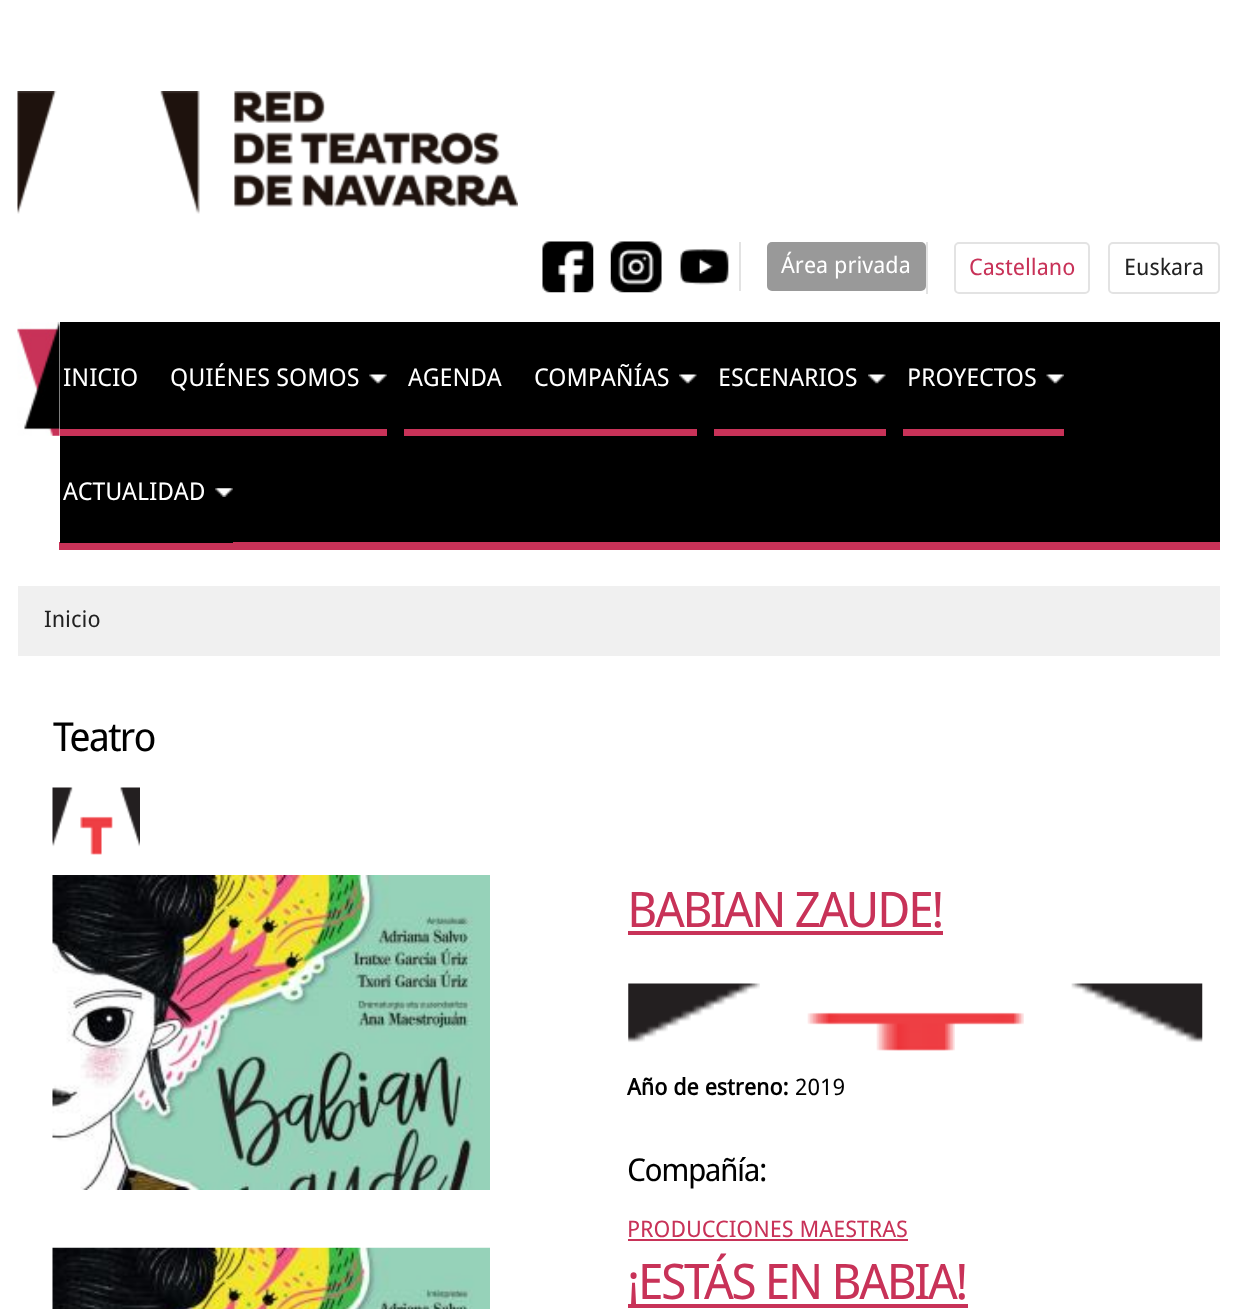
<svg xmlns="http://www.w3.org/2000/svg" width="1237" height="1309">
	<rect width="100%" height="100%" fill="#FFFFFF" />
	<image x="17" y="91" width="501" height="123" href="assets/img1.png" />
	<image x="542" y="241" width="52" height="52" href="assets/img2.png" />
	<image x="610" y="241" width="52" height="52" href="assets/img3.png" />
	<image x="680" y="249" width="49" height="36" href="assets/img4.png" />
	<rect x="739" y="242" width="2" height="49" fill="#E3E3E3" />
	<rect x="767" y="242" width="159" height="49" rx="5" fill="#999999" />
	<text x="781" y="273" font-family="Droid Sans" font-size="22.75" fill="#FFFFFF">Área privada</text>
	<rect x="926" y="242" width="2" height="52" fill="#E3E3E3" />
	<rect x="955" y="243" width="134" height="50" rx="4" fill="none" stroke="#E3E3E3" stroke-width="2" />
	<text x="969" y="275" font-family="Droid Sans" font-size="22.75" fill="#C83258">Castellano</text>
	<rect x="1109" y="243" width="110" height="50" rx="4" fill="none" stroke="#E3E3E3" stroke-width="2" />
	<text x="1124" y="275" font-family="Droid Sans" font-size="22.75" fill="#222222">Euskara</text>
	<image x="17" y="322" width="43" height="114" href="assets/img5.png" />
	<rect x="60" y="322" width="1160" height="220" fill="#000000" />
	<rect x="59" y="542" width="1161" height="8" fill="#C83258" />
	<rect x="60" y="429" width="327" height="7" fill="#C83258" />
	<text x="63" y="386" font-family="Droid Sans" font-size="24.5" fill="#FFFFFF">INICIO</text>
	<image x="369" y="374" width="18" height="10" href="assets/img6.png" />
	<text x="170" y="386" font-family="Droid Sans" font-size="24.5" fill="#FFFFFF">QUIÉNES SOMOS</text>
	<rect x="404" y="429" width="293" height="7" fill="#C83258" />
	<text x="408" y="386" font-family="Droid Sans" font-size="24.5" fill="#FFFFFF">AGENDA</text>
	<image x="679" y="374" width="18" height="10" href="assets/img7.png" />
	<text x="534" y="386" font-family="Droid Sans" font-size="24.5" fill="#FFFFFF">COMPAÑÍAS</text>
	<image x="868" y="374" width="18" height="10" href="assets/img7.png" />
	<rect x="714" y="429" width="172" height="7" fill="#C83258" />
	<text x="718" y="386" font-family="Droid Sans" font-size="24.5" fill="#FFFFFF">ESCENARIOS</text>
	<image x="1046" y="374" width="18" height="10" href="assets/img8.png" />
	<rect x="903" y="429" width="161" height="7" fill="#C83258" />
	<text x="907" y="386" font-family="Droid Sans" font-size="24.5" fill="#FFFFFF">PROYECTOS</text>
	<rect x="60" y="542" width="173" height="1" fill="#000000" />
	<image x="215" y="488" width="18" height="9" href="assets/img9.png" />
	<text x="63" y="500" font-family="Droid Sans" font-size="24.5" fill="#FFFFFF">ACTUALIDAD</text>
	<rect x="18" y="586" width="1202" height="70" fill="#F0F0F0" />
	<text x="44" y="627" font-family="Droid Sans" font-size="22.75" fill="#222222">Inicio</text>
	<text x="53" y="751" font-family="Droid Sans" font-size="40" letter-spacing="-2" fill="#000000">Teatro</text>
	<image x="52" y="787" width="88" height="68" href="assets/img10.png" />
	<image x="52" y="875" width="438" height="315" href="assets/img11.png" />
	<text x="627" y="927" font-family="Droid Sans" font-size="49" letter-spacing="-2.5" fill="#C83258">BABIAN ZAUDE!</text>
	<rect x="628" y="931" width="315" height="4" fill="#C83258" />
	<image x="628" y="983" width="575" height="68" href="assets/img12.png" />
	<text x="627" y="1095" font-family="Droid Sans" font-size="22.75" font-weight="700" fill="#000000">Año de estreno:</text>
	<text x="795" y="1095" font-family="Droid Sans" font-size="22.75" fill="#000000">2019</text>
	<text x="627" y="1181" font-family="Droid Sans" font-size="31.5" letter-spacing="-1.5" fill="#000000">Compañía:</text>
	<text x="627" y="1237" font-family="Droid Sans" font-size="22.75" fill="#C83258">PRODUCCIONES MAESTRAS</text>
	<rect x="628" y="1239" width="280" height="2" fill="#C83258" />
	<image x="52" y="1247" width="438" height="62" href="assets/img13.png" />
	<rect x="628" y="1304" width="340" height="4" fill="#C83258" />
	<text x="627" y="1299" font-family="Droid Sans" font-size="49" letter-spacing="-2.5" fill="#C83258">¡ESTÁS EN BABIA!</text>
</svg>
